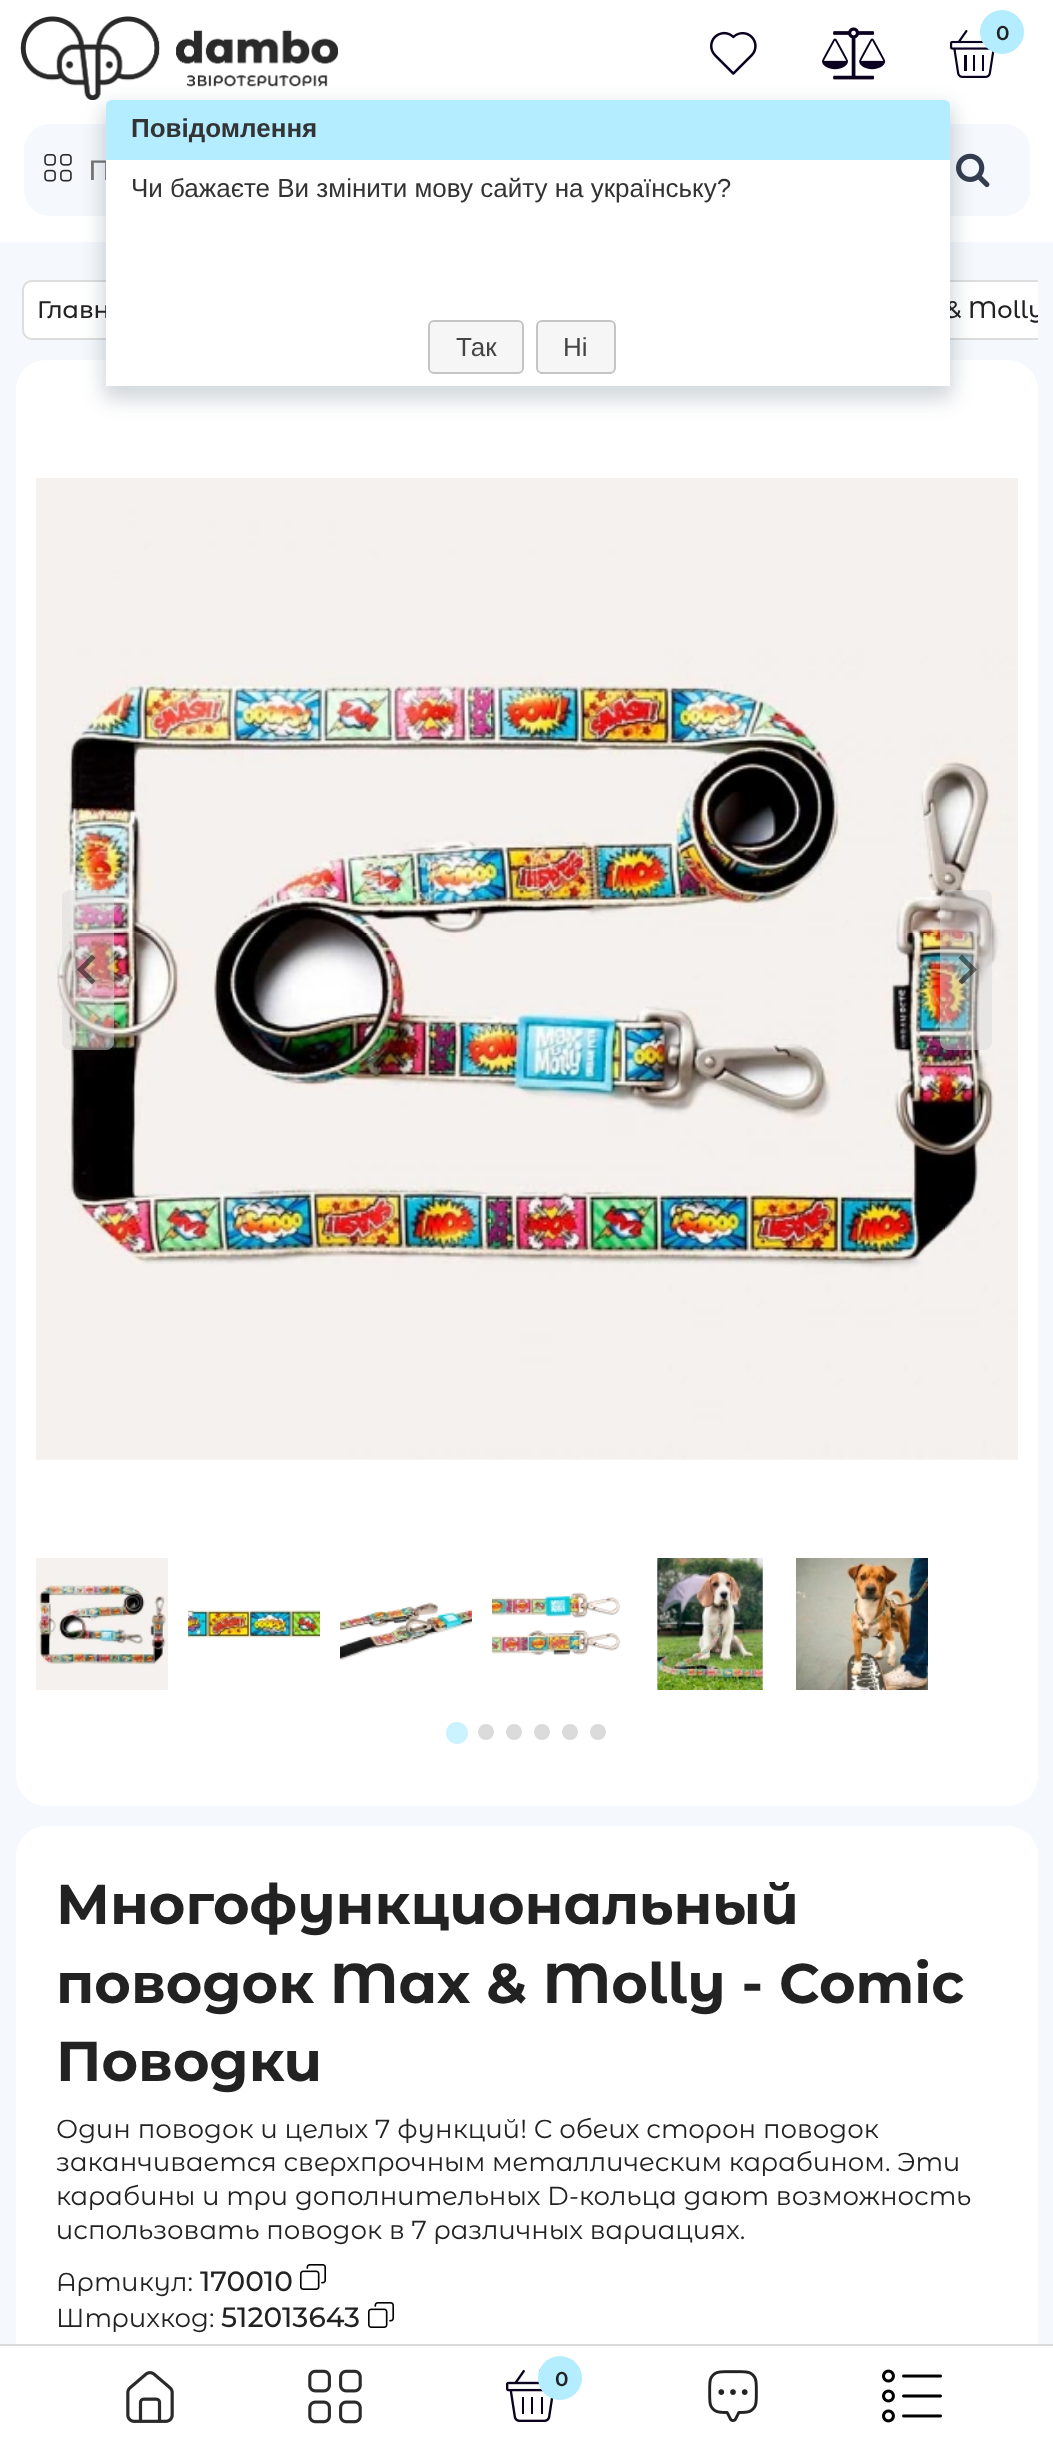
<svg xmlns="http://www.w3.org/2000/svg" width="1053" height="2444">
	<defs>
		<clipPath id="clip1"><rect x="16" y="280" width="1022" height="60" /></clipPath>
		<clipPath id="clip2"><rect x="876" y="294" width="162" height="32" /></clipPath>
	</defs>
	<rect width="100%" height="100%" fill="#F5F8FC" />
	<rect x="0" y="0" width="1053" height="242" fill="#FFFFFF" />
	<image x="20" y="16" width="318" height="84" href="assets/img1.png" />
	<image x="710" y="31" width="47" height="44" href="assets/img2.png" />
	<image x="822" y="27" width="64" height="53" href="assets/img3.png" />
	<image x="950" y="30" width="45" height="48" href="assets/img4.png" />
	<circle cx="1002" cy="32" r="22" fill="#B3EDFF" />
	<text x="996" y="40" font-family="Montserrat Alternates" font-size="20" font-weight="600" fill="#222222">0</text>
	<rect x="24" y="124" width="1006" height="92" rx="26" fill="#F5F8FC" />
	<image x="44" y="154" width="28" height="28" href="assets/img5.png" />
	<text x="88" y="180" font-family="Montserrat Alternates" font-size="28" font-weight="500" fill="#757575">П</text>
	<image x="956" y="153" width="34" height="35" href="assets/img6.png" />
	<path d="M32 281H153V339H32C27 339 23 335 23 330V290C23 285 27 281 32 281Z" fill="#FFFFFF" stroke="#DDDDDD" stroke-width="2" />
	<rect x="950" y="282" width="88" height="56" fill="#FFFFFF" />
	<g clip-path="url(#clip1)">
		<rect x="839" y="281" width="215" height="58" fill="none" stroke="#DDDDDD" stroke-width="2" />
	</g>
	<rect x="16" y="360" width="1022" height="1446" rx="30" fill="#FFFFFF" />
	<rect x="102" y="106" width="852" height="294" rx="10" fill="#223C50" fill-opacity="0.2" filter="blur(10px)" />
	<text x="37" y="318" font-family="Montserrat Alternates" font-size="24" font-weight="500" fill="#222222">Главн</text>
	<g clip-path="url(#clip2)">
		<text x="945" y="318" font-family="Montserrat Alternates" font-size="24" font-weight="500" fill="#222222">&amp; Molly</text>
	</g>
	<path d="M112 100H944C947.5 100 950 102.5 950 106V386H106V106C106 102.5 108.5 100 112 100Z" fill="#FFFFFF" />
	<path d="M112 100H944C947.5 100 950 102.5 950 106V160H106V106C106 102.5 108.5 100 112 100Z" fill="#B3EDFF" />
	<text x="131" y="137" font-family="Liberation Sans" font-size="26" font-weight="700" fill="#333333">Повідомлення</text>
	<text x="131" y="197" font-family="Liberation Sans" font-size="26" fill="#333333">Чи бажаєте Ви змінити мову сайту на українську?</text>
	<rect x="429" y="321" width="94" height="52" rx="5" fill="#F6F6F6" stroke="#C5C5C5" stroke-width="2" />
	<text x="456" y="356" font-family="Liberation Sans" font-size="26" fill="#454545">Так</text>
	<rect x="537" y="321" width="78" height="52" rx="5" fill="#F6F6F6" stroke="#C5C5C5" stroke-width="2" />
	<text x="563" y="356" font-family="Liberation Sans" font-size="26" fill="#454545">Ні</text>
	<image x="36" y="478" width="982" height="982" href="assets/img7.png" />
	<rect x="62" y="890" width="52" height="160" rx="8" fill="#DBDBDB" fill-opacity="0.5" />
	<path d="M92 954.5L95.5 958L84 969.5L95.5 981L92 984.5L77 969.5Z" fill="#000000" fill-opacity="0.5" />
	<rect x="940" y="890" width="52" height="160" rx="8" fill="#DBDBDB" fill-opacity="0.5" />
	<path d="M962 954.5L958.5 958L970 969.5L958.5 981L962 984.5L977 969.5Z" fill="#000000" fill-opacity="0.5" />
	<image x="36" y="1558" width="132" height="132" href="assets/img8.png" />
	<image x="188" y="1610" width="132" height="28" href="assets/img9.png" />
	<image x="340" y="1602" width="132" height="59" href="assets/img10.png" />
	<image x="492" y="1592" width="129" height="64" href="assets/img11.png" />
	<image x="657" y="1558" width="106" height="132" href="assets/img12.png" />
	<image x="796" y="1558" width="132" height="132" href="assets/img13.png" />
	<circle cx="457" cy="1733" r="11" fill="#CAF2FF" />
	<circle cx="486" cy="1732" r="8" fill="#DBDBDB" />
	<circle cx="514" cy="1732" r="8" fill="#DBDBDB" />
	<circle cx="542" cy="1732" r="8" fill="#DBDBDB" />
	<circle cx="570" cy="1732" r="8" fill="#DBDBDB" />
	<circle cx="598" cy="1732" r="8" fill="#DBDBDB" />
	<path d="M46 1826H1008C1024.5 1826 1038 1839.5 1038 1856V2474H16V1856C16 1839.5 29.5 1826 46 1826Z" fill="#FFFFFF" />
	<g font-family="Montserrat Alternates" font-size="56" font-weight="700" fill="#222222">
		<text x="56" y="1924">Многофункциональный</text>
		<text x="56" y="2003">поводок Max &amp; Molly - Comic</text>
		<text x="56" y="2081">Поводки</text>
	</g>
	<g font-family="Montserrat Alternates" font-size="26" fill="#222222">
		<text x="56" y="2138">Один поводок и целых 7 функций! С обеих сторон поводок</text>
		<text x="56" y="2171">заканчивается сверхпрочным металлическим карабином. Эти</text>
		<text x="56" y="2205">карабины и три дополнительных D-кольца дают возможность</text>
		<text x="56" y="2239">использовать поводок в 7 различных вариациях.</text>
		<text x="56" y="2291">Артикул:</text>
	</g>
	<text x="200" y="2291" font-family="Montserrat Alternates" font-size="28" font-weight="500" fill="#222222">170010</text>
	<image x="300" y="2264" width="26" height="26" href="assets/img14.png" />
	<text x="56" y="2327" font-family="Montserrat Alternates" font-size="26" fill="#222222">Штрихкод:</text>
	<text x="221" y="2327" font-family="Montserrat Alternates" font-size="28" font-weight="500" fill="#222222">512013643</text>
	<image x="368" y="2302" width="26" height="26" href="assets/img14.png" />
	<rect x="0" y="2346" width="1053" height="98" fill="#FFFFFF" />
	<rect x="0" y="2344" width="1053" height="2" fill="#DBDBDB" />
	<image x="126" y="2371" width="48" height="52" href="assets/img15.png" />
	<image x="308" y="2369" width="54" height="55" href="assets/img16.png" />
	<image x="506" y="2370" width="48" height="52" href="assets/img17.png" />
	<circle cx="560" cy="2378" r="22" fill="#B3EDFF" />
	<text x="555" y="2386" font-family="Montserrat Alternates" font-size="20" font-weight="600" fill="#222222">0</text>
	<image x="708" y="2370" width="50" height="52" href="assets/img18.png" />
	<image x="882" y="2369" width="60" height="54" href="assets/img19.png" />
</svg>
